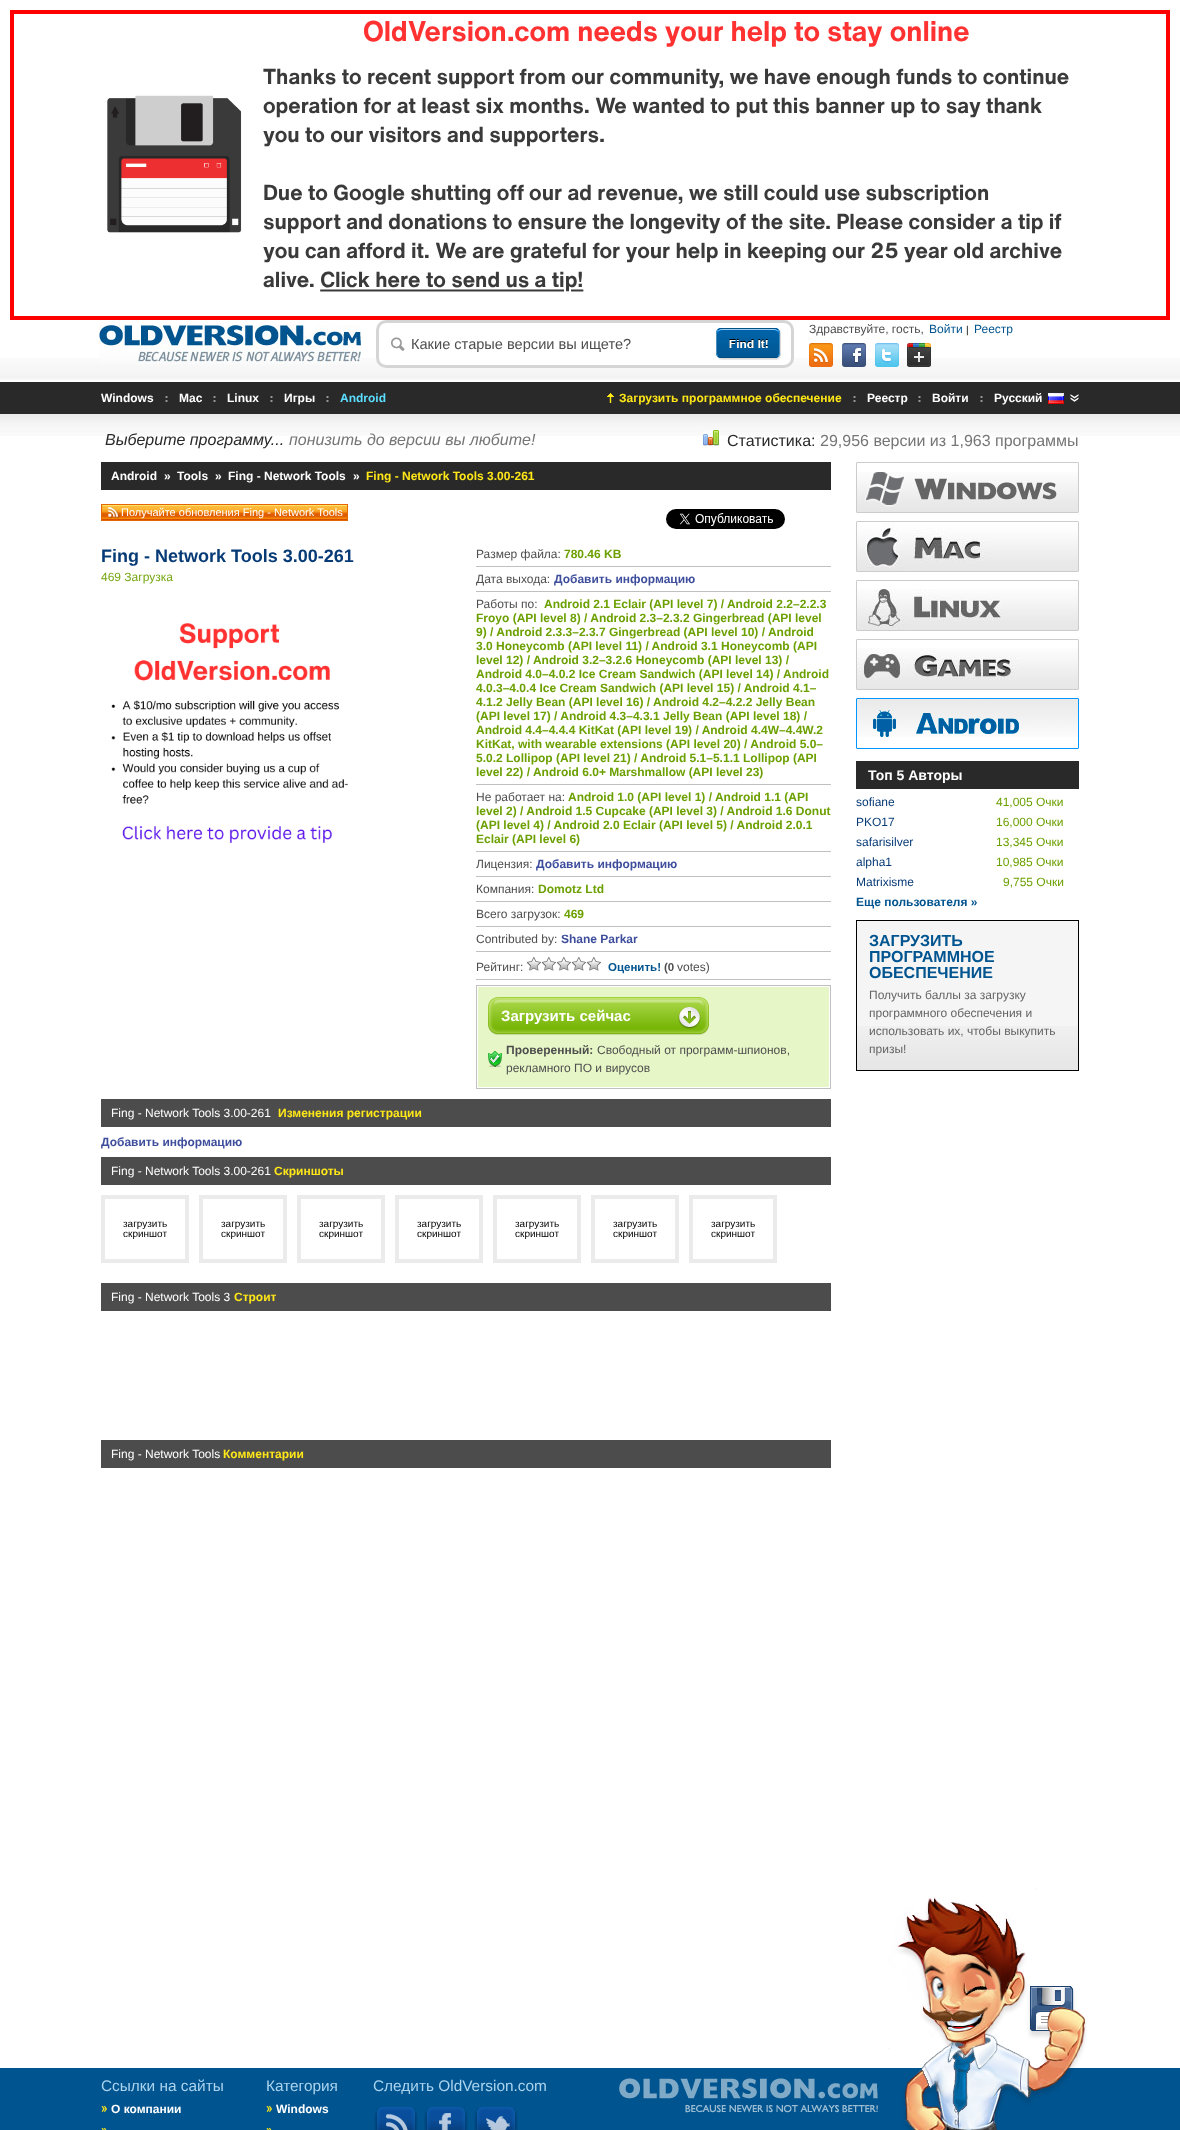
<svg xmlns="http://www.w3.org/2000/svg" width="1180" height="2130">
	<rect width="100%" height="100%" fill="#FFFFFF" />
	<image x="0" y="358" width="1180" height="22" href="assets/img1.png" />
	<rect x="12" y="12" width="1156" height="306" fill="none" stroke="#FF0000" stroke-width="4" />
	<image x="107" y="20" width="962" height="272" href="assets/img2.png" />
	<image x="99" y="325" width="262" height="39" href="assets/img3.png" />
	<rect x="377.5" y="321.5" width="415" height="45" rx="8.5" fill="#FFFFFF" stroke="#D5D5D5" stroke-width="3" />
	<image x="391" y="337" width="14" height="14" href="assets/img4.png" />
	<text x="411" y="349" font-family="Liberation Sans" font-size="14.6" fill="#4E4E4E">Какие старые версии вы ищете?</text>
	<image x="716" y="328" width="65" height="32" href="assets/img5.png" />
	<text x="809" y="333" font-family="Liberation Sans" font-size="12" fill="#4E4E4E">Здравствуйте, гость,</text>
	<text x="929" y="333" font-family="Liberation Sans" font-size="12" fill="#00548F">Войти</text>
	<text x="966" y="333" font-family="Liberation Sans" font-size="10" fill="#000000">|</text>
	<text x="974" y="333" font-family="Liberation Sans" font-size="12" fill="#00548F">Реестр</text>
	<image x="809" y="343" width="24" height="24" href="assets/img6.png" />
	<image x="842" y="343" width="24" height="24" href="assets/img7.png" />
	<image x="875" y="343" width="24" height="24" href="assets/img8.png" />
	<image x="907" y="343" width="24" height="24" href="assets/img9.png" />
	<rect x="0" y="382" width="1180" height="32" fill="#292929" />
	<image x="165" y="396" width="3" height="6" href="assets/img10.png" />
	<text x="101" y="402" font-family="Liberation Sans" font-size="12" font-weight="700" fill="#FFFFFF">Windows</text>
	<image x="213" y="396" width="3" height="6" href="assets/img10.png" />
	<text x="179" y="402" font-family="Liberation Sans" font-size="12" font-weight="700" fill="#FFFFFF">Mac</text>
	<image x="270" y="396" width="3" height="6" href="assets/img10.png" />
	<text x="227" y="402" font-family="Liberation Sans" font-size="12" font-weight="700" fill="#FFFFFF">Linux</text>
	<image x="326" y="396" width="3" height="6" href="assets/img10.png" />
	<text x="284" y="402" font-family="Liberation Sans" font-size="12" font-weight="700" fill="#FFFFFF">Игры</text>
	<text x="340" y="402" font-family="Liberation Sans" font-size="12" font-weight="700" fill="#5BDEFF">Android</text>
	<image x="853" y="396" width="3" height="6" href="assets/img10.png" />
	<image x="607" y="393" width="7" height="10" href="assets/img11.png" />
	<text x="619" y="402" font-family="Liberation Sans" font-size="12" font-weight="700" fill="#FFE718">Загрузить программное обеспечение</text>
	<image x="918" y="396" width="3" height="6" href="assets/img10.png" />
	<text x="867" y="402" font-family="Liberation Sans" font-size="12" font-weight="700" fill="#FFFFFF">Реестр</text>
	<image x="980" y="396" width="3" height="6" href="assets/img10.png" />
	<text x="932" y="402" font-family="Liberation Sans" font-size="12" font-weight="700" fill="#FFFFFF">Войти</text>
	<image x="1070" y="394" width="9" height="8" href="assets/img12.png" />
	<text x="994" y="402" font-family="Liberation Sans" font-size="12" font-weight="700" fill="#FFFFFF">Русский</text>
	<image x="1048" y="393" width="16" height="11" href="assets/img13.png" />
	<image x="0" y="414" width="1180" height="22" href="assets/img14.png" />
	<text x="105" y="445" font-family="Liberation Sans" font-size="16" font-style="italic" fill="#292929">Выберите программу...</text>
	<text x="289" y="445" font-family="Liberation Sans" font-size="16" font-style="italic" fill="#767676">понизить до версии вы любите!</text>
	<image x="703" y="430" width="16" height="16" href="assets/img15.png" />
	<text x="727" y="446" font-family="Liberation Sans" font-size="16" fill="#292929">Статистика:</text>
	<text x="820" y="446" font-family="Liberation Sans" font-size="16" fill="#767676">29,956 версии из 1,963 программы</text>
	<rect x="101" y="462" width="730" height="28" fill="#292929" />
	<g font-family="Liberation Sans" font-size="12" font-weight="700" fill="#FFFFFF">
		<text x="111" y="480">Android</text>
		<text x="164" y="480">»</text>
		<text x="177" y="480">Tools</text>
		<text x="215" y="480">»</text>
		<text x="228" y="480">Fing - Network Tools</text>
		<text x="353" y="480">»</text>
	</g>
	<text x="366" y="480" font-family="Liberation Sans" font-size="12" font-weight="700" fill="#FFE718">Fing - Network Tools 3.00-261</text>
	<image x="101" y="504" width="247" height="17" href="assets/img16.png" />
	<image x="101" y="505" width="19" height="15" href="assets/img17.png" />
	<text x="121" y="516" font-family="Liberation Sans" font-size="11" fill="#FFFFFF">Получайте обновления Fing - Network Tools</text>
	<image x="666" y="509" width="119" height="20" href="assets/img18.png" />
	<text x="101" y="562" font-family="Liberation Sans" font-size="18" font-weight="700" fill="#073B76">Fing - Network Tools 3.00-261</text>
	<text x="101" y="581" font-family="Liberation Sans" font-size="12" fill="#76A611">469 Загрузка</text>
	<image x="111" y="623" width="238" height="220" href="assets/img19.png" />
	<rect x="476" y="566" width="355" height="1" fill="#C0C0C0" />
	<text x="476" y="558" font-family="Liberation Sans" font-size="12" fill="#4E4E4E">Размер файла:</text>
	<text x="564" y="558" font-family="Liberation Sans" font-size="12" font-weight="700" fill="#6CA000">780.46 KB</text>
	<rect x="476" y="591" width="355" height="1" fill="#C0C0C0" />
	<text x="476" y="583" font-family="Liberation Sans" font-size="12" fill="#4E4E4E">Дата выхода:</text>
	<text x="554" y="583" font-family="Liberation Sans" font-size="12" font-weight="700" fill="#3E4E9C">Добавить информацию</text>
	<rect x="476" y="784" width="355" height="1" fill="#C0C0C0" />
	<text x="476" y="608" font-family="Liberation Sans" font-size="12" fill="#4E4E4E">Работы по:</text>
	<g font-family="Liberation Sans" font-size="12" font-weight="700" fill="#6CA000">
		<text x="544" y="608">Android 2.1 Eclair (API level 7) / Android 2.2–2.2.3</text>
		<text x="476" y="622">Froyo (API level 8) / Android 2.3–2.3.2 Gingerbread (API level</text>
		<text x="476" y="636">9) / Android 2.3.3–2.3.7 Gingerbread (API level 10) / Android</text>
		<text x="476" y="650">3.0 Honeycomb (API level 11) / Android 3.1 Honeycomb (API</text>
		<text x="476" y="664">level 12) / Android 3.2–3.2.6 Honeycomb (API level 13) /</text>
		<text x="476" y="678">Android 4.0–4.0.2 Ice Cream Sandwich (API level 14) / Android</text>
		<text x="476" y="692">4.0.3–4.0.4 Ice Cream Sandwich (API level 15) / Android 4.1–</text>
		<text x="476" y="706">4.1.2 Jelly Bean (API level 16) / Android 4.2–4.2.2 Jelly Bean</text>
		<text x="476" y="720">(API level 17) / Android 4.3–4.3.1 Jelly Bean (API level 18) /</text>
		<text x="476" y="734">Android 4.4–4.4.4 KitKat (API level 19) / Android 4.4W–4.4W.2</text>
		<text x="476" y="748">KitKat, with wearable extensions (API level 20) / Android 5.0–</text>
		<text x="476" y="762">5.0.2 Lollipop (API level 21) / Android 5.1–5.1.1 Lollipop (API</text>
		<text x="476" y="776">level 22) / Android 6.0+ Marshmallow (API level 23)</text>
	</g>
	<rect x="476" y="851" width="355" height="1" fill="#C0C0C0" />
	<text x="476" y="801" font-family="Liberation Sans" font-size="12" fill="#4E4E4E">Не работает на:</text>
	<g font-family="Liberation Sans" font-size="12" font-weight="700" fill="#6CA000">
		<text x="568" y="801">Android 1.0 (API level 1) / Android 1.1 (API</text>
		<text x="476" y="815">level 2) / Android 1.5 Cupcake (API level 3) / Android 1.6 Donut</text>
		<text x="476" y="829">(API level 4) / Android 2.0 Eclair (API level 5) / Android 2.0.1</text>
		<text x="476" y="843">Eclair (API level 6)</text>
	</g>
	<rect x="476" y="876" width="355" height="1" fill="#C0C0C0" />
	<text x="476" y="868" font-family="Liberation Sans" font-size="12" fill="#4E4E4E">Лицензия:</text>
	<text x="536" y="868" font-family="Liberation Sans" font-size="12" font-weight="700" fill="#3E4E9C">Добавить информацию</text>
	<rect x="476" y="901" width="355" height="1" fill="#C0C0C0" />
	<text x="476" y="893" font-family="Liberation Sans" font-size="12" fill="#4E4E4E">Компания:</text>
	<text x="538" y="893" font-family="Liberation Sans" font-size="12" font-weight="700" fill="#6CA000">Domotz Ltd</text>
	<rect x="476" y="926" width="355" height="1" fill="#C0C0C0" />
	<text x="476" y="918" font-family="Liberation Sans" font-size="12" fill="#4E4E4E">Всего загрузок:</text>
	<text x="564" y="918" font-family="Liberation Sans" font-size="12" font-weight="700" fill="#6CA000">469</text>
	<rect x="476" y="951" width="355" height="1" fill="#C0C0C0" />
	<text x="476" y="943" font-family="Liberation Sans" font-size="12" fill="#4E4E4E">Contributed by:</text>
	<text x="561" y="943" font-family="Liberation Sans" font-size="12" font-weight="700" fill="#3E4E9C">Shane Parkar</text>
	<rect x="476" y="979" width="355" height="1" fill="#C0C0C0" />
	<text x="476" y="971" font-family="Liberation Sans" font-size="12" fill="#4E4E4E">Рейтинг:</text>
	<image x="527" y="957" width="74" height="14" href="assets/img20.png" />
	<text x="608" y="971" font-family="Liberation Sans" font-size="11.5" font-weight="700" fill="#00548F">Оценить!</text>
	<text x="664" y="971" font-family="Liberation Sans" font-size="11.5" font-weight="700" fill="#4E4E4E">(0</text>
	<text x="677" y="971" font-family="Liberation Sans" font-size="12" fill="#4E4E4E">votes)</text>
	<rect x="476.5" y="985.5" width="354" height="103" fill="none" stroke="#C0C0C0" />
	<rect x="478" y="987" width="351" height="100" fill="#E7F6C7" />
	<image x="488" y="997" width="221" height="38" href="assets/img21.png" />
	<text x="501" y="1021" font-family="Liberation Sans" font-size="15" font-weight="700" fill="#FFFFFF">Загрузить сейчас</text>
	<image x="488" y="1051" width="14" height="16" href="assets/img22.png" />
	<text x="506" y="1054" font-family="Liberation Sans" font-size="12" font-weight="700" fill="#4E4E4E">Проверенный:</text>
	<g font-family="Liberation Sans" font-size="12" fill="#4E4E4E">
		<text x="597" y="1054">Свободный от программ-шпионов,</text>
		<text x="506" y="1072">рекламного ПО и вирусов</text>
	</g>
	<rect x="101" y="1099" width="730" height="28" fill="#4C4C4C" />
	<text x="111" y="1117" font-family="Liberation Sans" font-size="12" fill="#FFFFFF">Fing - Network Tools 3.00-261</text>
	<text x="278" y="1117" font-family="Liberation Sans" font-size="12" font-weight="700" fill="#FFE718">Изменения регистрации</text>
	<text x="101" y="1146" font-family="Liberation Sans" font-size="12" font-weight="700" fill="#3E4E9C">Добавить информацию</text>
	<rect x="101" y="1157" width="730" height="28" fill="#4C4C4C" />
	<text x="111" y="1175" font-family="Liberation Sans" font-size="12" fill="#FFFFFF">Fing - Network Tools 3.00-261</text>
	<text x="274" y="1175" font-family="Liberation Sans" font-size="12" font-weight="700" fill="#FFE718">Скриншоты</text>
	<rect x="103" y="1197" width="84" height="64" fill="none" stroke="#EBEBEB" stroke-width="4" />
	<g font-family="Liberation Sans" font-size="10" fill="#000000">
		<text x="123" y="1227">загрузить</text>
		<text x="123" y="1237">скриншот</text>
	</g>
	<rect x="201" y="1197" width="84" height="64" fill="none" stroke="#EBEBEB" stroke-width="4" />
	<g font-family="Liberation Sans" font-size="10" fill="#000000">
		<text x="221" y="1227">загрузить</text>
		<text x="221" y="1237">скриншот</text>
	</g>
	<rect x="299" y="1197" width="84" height="64" fill="none" stroke="#EBEBEB" stroke-width="4" />
	<g font-family="Liberation Sans" font-size="10" fill="#000000">
		<text x="319" y="1227">загрузить</text>
		<text x="319" y="1237">скриншот</text>
	</g>
	<rect x="397" y="1197" width="84" height="64" fill="none" stroke="#EBEBEB" stroke-width="4" />
	<g font-family="Liberation Sans" font-size="10" fill="#000000">
		<text x="417" y="1227">загрузить</text>
		<text x="417" y="1237">скриншот</text>
	</g>
	<rect x="495" y="1197" width="84" height="64" fill="none" stroke="#EBEBEB" stroke-width="4" />
	<g font-family="Liberation Sans" font-size="10" fill="#000000">
		<text x="515" y="1227">загрузить</text>
		<text x="515" y="1237">скриншот</text>
	</g>
	<rect x="593" y="1197" width="84" height="64" fill="none" stroke="#EBEBEB" stroke-width="4" />
	<g font-family="Liberation Sans" font-size="10" fill="#000000">
		<text x="613" y="1227">загрузить</text>
		<text x="613" y="1237">скриншот</text>
	</g>
	<rect x="691" y="1197" width="84" height="64" fill="none" stroke="#EBEBEB" stroke-width="4" />
	<g font-family="Liberation Sans" font-size="10" fill="#000000">
		<text x="711" y="1227">загрузить</text>
		<text x="711" y="1237">скриншот</text>
	</g>
	<rect x="101" y="1283" width="730" height="28" fill="#4C4C4C" />
	<text x="111" y="1301" font-family="Liberation Sans" font-size="12" fill="#FFFFFF">Fing - Network Tools 3</text>
	<text x="234" y="1301" font-family="Liberation Sans" font-size="12" font-weight="700" fill="#FFE718">Строит</text>
	<rect x="101" y="1440" width="730" height="28" fill="#4C4C4C" />
	<text x="111" y="1458" font-family="Liberation Sans" font-size="12" fill="#FFFFFF">Fing - Network Tools</text>
	<text x="223" y="1458" font-family="Liberation Sans" font-size="12" font-weight="700" fill="#FFE718">Комментарии</text>
	<image x="857" y="472" width="221" height="40" href="assets/img23.png" />
	<rect x="856.5" y="462.5" width="222" height="50" rx="0.5" fill="none" stroke="#CCCCCC" />
	<image x="857" y="522" width="221" height="49" href="assets/img24.png" />
	<rect x="856.5" y="521.5" width="222" height="50" rx="0.5" fill="none" stroke="#CCCCCC" />
	<image x="857" y="589" width="221" height="41" href="assets/img25.png" />
	<rect x="856.5" y="580.5" width="222" height="50" rx="0.5" fill="none" stroke="#CCCCCC" />
	<image x="857" y="648" width="221" height="41" href="assets/img26.png" />
	<rect x="856.5" y="639.5" width="222" height="50" rx="0.5" fill="none" stroke="#CCCCCC" />
	<image x="857" y="698" width="222" height="39" href="assets/img27.png" />
	<rect x="856.5" y="698.5" width="222" height="50" rx="0.5" fill="none" stroke="#0095FF" />
	<rect x="856" y="761" width="223" height="28" fill="#292929" />
	<text x="868" y="780" font-family="Liberation Sans" font-size="14" font-weight="700" fill="#FFFFFF">Топ 5 Авторы</text>
	<text x="856" y="806" font-family="Liberation Sans" font-size="12" fill="#073B76">sofiane</text>
	<text x="996" y="806" font-family="Liberation Sans" font-size="12" fill="#6CA000">41,005 Очки</text>
	<text x="856" y="826" font-family="Liberation Sans" font-size="12" fill="#073B76">PKO17</text>
	<text x="996" y="826" font-family="Liberation Sans" font-size="12" fill="#6CA000">16,000 Очки</text>
	<text x="856" y="846" font-family="Liberation Sans" font-size="12" fill="#073B76">safarisilver</text>
	<text x="996" y="846" font-family="Liberation Sans" font-size="12" fill="#6CA000">13,345 Очки</text>
	<text x="856" y="866" font-family="Liberation Sans" font-size="12" fill="#073B76">alpha1</text>
	<text x="996" y="866" font-family="Liberation Sans" font-size="12" fill="#6CA000">10,985 Очки</text>
	<text x="856" y="886" font-family="Liberation Sans" font-size="12" fill="#073B76">Matrixisme</text>
	<text x="1003" y="886" font-family="Liberation Sans" font-size="12" fill="#6CA000">9,755 Очки</text>
	<text x="856" y="906" font-family="Liberation Sans" font-size="12" font-weight="700" fill="#00548F">Еще пользователя »</text>
	<rect x="857" y="921" width="221" height="105" fill="#F5F5F5" />
	<image x="857" y="1026" width="221" height="44" href="assets/img28.png" />
	<rect x="856.5" y="920.5" width="222" height="150" fill="none" stroke="#000000" />
	<g font-family="Liberation Sans" font-size="16" font-weight="700" fill="#00548F">
		<text x="869" y="946">ЗАГРУЗИТЬ</text>
		<text x="869" y="962">ПРОГРАММНОЕ</text>
		<text x="869" y="978">ОБЕСПЕЧЕНИЕ</text>
	</g>
	<g font-family="Liberation Sans" font-size="12" fill="#656565">
		<text x="869" y="999">Получить баллы за загрузку</text>
		<text x="869" y="1017">программного обеспечения и</text>
		<text x="869" y="1035">использовать их, чтобы выкупить</text>
		<text x="869" y="1053">призы!</text>
	</g>
	<rect x="0" y="2068" width="1180" height="62" fill="#00548F" />
	<text x="101" y="2091" font-family="Liberation Sans" font-size="15.4" fill="#ABD4F0">Ссылки на сайты</text>
	<image x="101" y="2106" width="6" height="6" href="assets/img29.png" />
	<text x="111" y="2113" font-family="Liberation Sans" font-size="12" font-weight="700" fill="#FFFFFF">О компании</text>
	<image x="101" y="2128" width="6" height="2" href="assets/img30.png" />
	<text x="266" y="2091" font-family="Liberation Sans" font-size="15.4" fill="#ABD4F0">Категория</text>
	<image x="266" y="2106" width="6" height="6" href="assets/img29.png" />
	<text x="276" y="2113" font-family="Liberation Sans" font-size="12" font-weight="700" fill="#FFFFFF">Windows</text>
	<image x="266" y="2128" width="6" height="2" href="assets/img30.png" />
	<text x="373" y="2091" font-family="Liberation Sans" font-size="15.4" fill="#ABD4F0">Следить OldVersion.com</text>
	<image x="374" y="2107" width="44" height="23" href="assets/img31.png" />
	<image x="424" y="2107" width="44" height="23" href="assets/img32.png" />
	<image x="474" y="2107" width="44" height="23" href="assets/img33.png" />
	<image x="619" y="2078" width="259" height="35" href="assets/img34.png" />
	<image x="888" y="1888" width="199" height="242" href="assets/img35.png" />
</svg>
